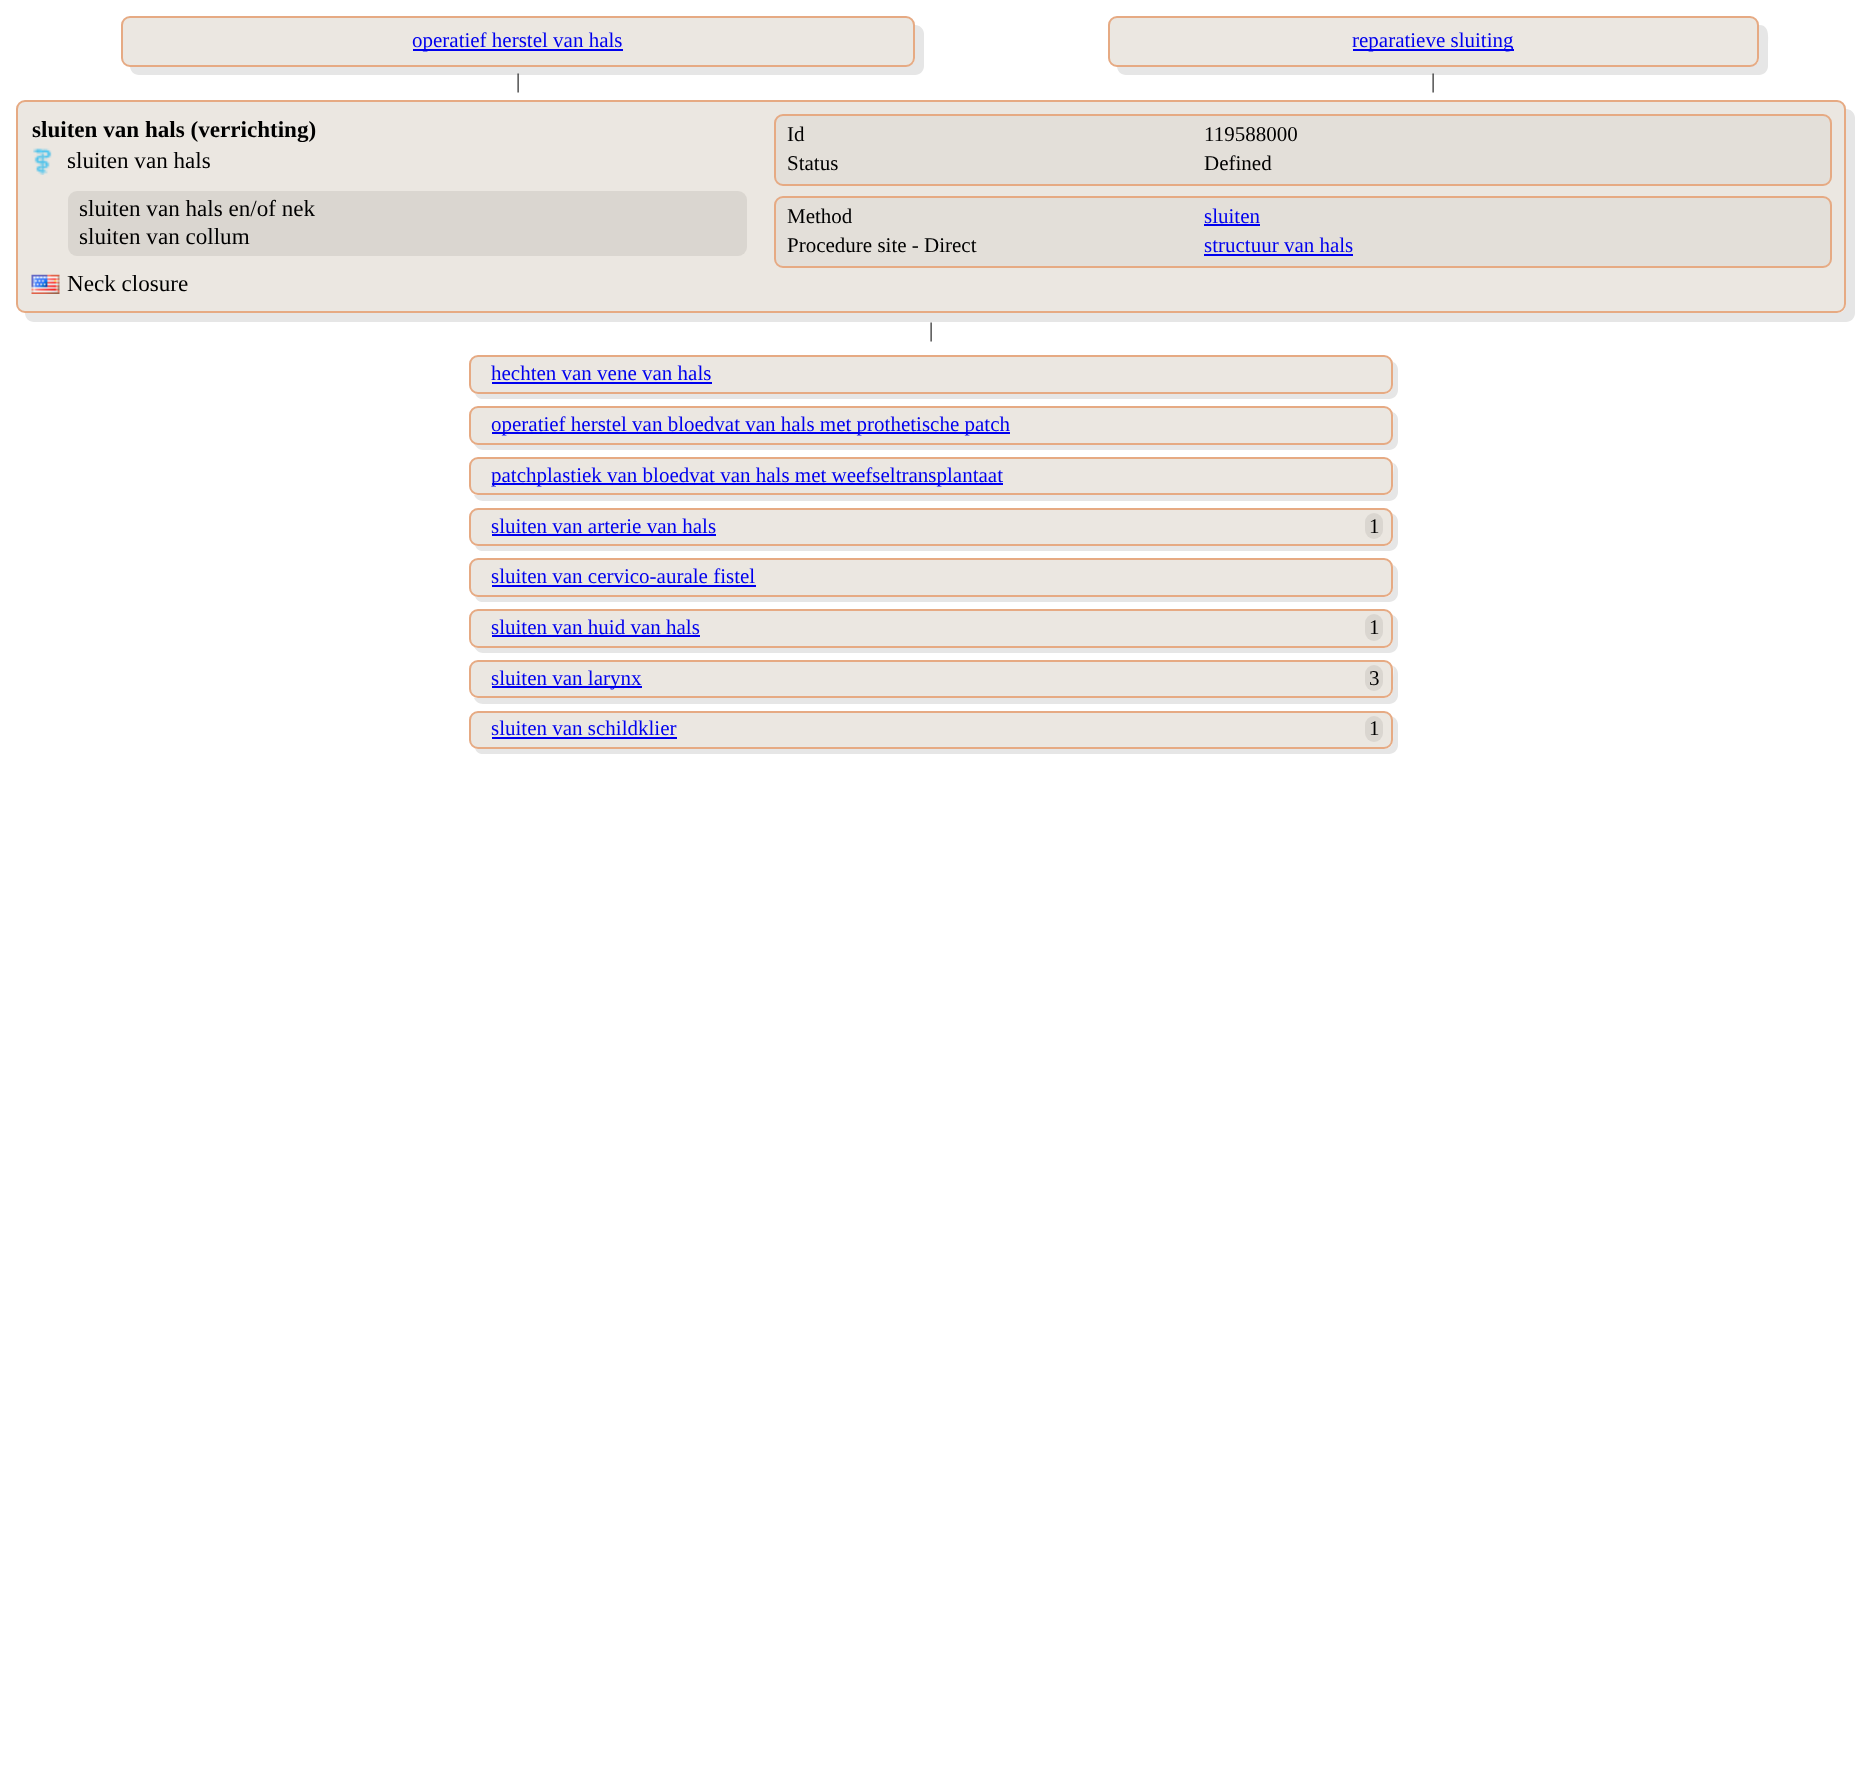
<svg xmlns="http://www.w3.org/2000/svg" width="1862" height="1789">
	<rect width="100%" height="100%" fill="#FFFFFF" />
	<path d="M130 66C130 71 134 75 139 75H915C920 75 924 71 924 66V34C924 29 920 25 915 25V58C915 63 911 66 906 66Z" fill="#E6E6E6" />
	<rect x="122" y="17" width="792" height="49" rx="8" fill="#EBE7E1" stroke="#E6AA83" stroke-width="2" />
	<rect x="413" y="49" width="210" height="2" fill="#0000EE" />
	<text x="412" y="47" font-family="Liberation Serif" font-size="21" fill="#0000EE">operatief herstel van hals</text>
	<path d="M1117 66C1117 71 1121 75 1126 75H1759C1764 75 1768 71 1768 66V45C1768 37 1770 25 1759 25V58C1759 63 1755 66 1750 66Z" fill="#E6E6E6" />
	<rect x="1109" y="17" width="649" height="49" rx="8" fill="#EBE7E1" stroke="#E6AA83" stroke-width="2" />
	<rect x="1353" y="49" width="161" height="2" fill="#0000EE" />
	<text x="1352" y="47" font-family="Liberation Serif" font-size="21" fill="#0000EE">reparatieve sluiting</text>
	<g font-family="Liberation Serif" font-size="21" fill="#000000">
		<text x="516" y="88">|</text>
		<text x="1431" y="88">|</text>
	</g>
	<path d="M25 313C25 318 29 322 34 322H1846C1851 322 1855 318 1855 313V118C1855 113 1851 109 1846 109V304C1846 309 1842 313 1838 313Z" fill="#E6E6E6" />
	<rect x="17" y="101" width="1828" height="211" rx="8" fill="#EBE7E1" stroke="#E6AA83" stroke-width="2" />
	<text x="32" y="137" font-family="Liberation Serif" font-size="23.1" font-weight="700" fill="#000000">sluiten van hals (verrichting)</text>
	<image x="33" y="148" width="19" height="27" href="assets/img1.png" />
	<text x="67" y="168" font-family="Liberation Serif" font-size="23.1" fill="#000000">sluiten van hals</text>
	<rect x="68" y="191" width="679" height="65" rx="9" fill="#DAD6D0" />
	<g font-family="Liberation Serif" font-size="23.1" fill="#000000">
		<text x="79" y="216">sluiten van hals en/of nek</text>
		<text x="79" y="244">sluiten van collum</text>
	</g>
	<image x="31" y="274" width="29" height="20" href="assets/img2.png" />
	<text x="67" y="291" font-family="Liberation Serif" font-size="23.1" fill="#000000">Neck closure</text>
	<rect x="775" y="115" width="1056" height="70" rx="8" fill="#E3DFD9" stroke="#E6AA83" stroke-width="2" />
	<g font-family="Liberation Serif" font-size="21" fill="#000000">
		<text x="787" y="141">Id</text>
		<text x="1204" y="141">119588000</text>
		<text x="787" y="170">Status</text>
		<text x="1204" y="170">Defined</text>
	</g>
	<rect x="775" y="197" width="1056" height="70" rx="8" fill="#E3DFD9" stroke="#E6AA83" stroke-width="2" />
	<text x="787" y="223" font-family="Liberation Serif" font-size="21" fill="#000000">Method</text>
	<text x="1204" y="223" font-family="Liberation Serif" font-size="21" fill="#0000EE">sluiten</text>
	<rect x="1204" y="224" width="56" height="2" fill="#0000EE" />
	<text x="787" y="252" font-family="Liberation Serif" font-size="21" fill="#000000">Procedure site - Direct</text>
	<text x="1204" y="252" font-family="Liberation Serif" font-size="21" fill="#0000EE">structuur van hals</text>
	<rect x="1204" y="254" width="149" height="2" fill="#0000EE" />
	<text x="929" y="337" font-family="Liberation Serif" font-size="21" fill="#000000">|</text>
	<path d="M475 393C476 397 479 399 483 399H1389C1394 399 1398 395 1398 390V370C1398 366 1396 363 1393 362V374C1393 381 1395 394 1384 394H478Z" fill="#E6E6E6" />
	<rect x="470" y="356" width="922" height="37" rx="8" fill="#EBE7E1" stroke="#E6AA83" stroke-width="2" />
	<text x="491" y="380" font-family="Liberation Serif" font-size="21" fill="#0000EE">hechten van vene van hals</text>
	<rect x="492" y="382" width="220" height="2" fill="#0000EE" />
	<path d="M474 444C476 447 479 450 483 450H1389C1394 450 1398 446 1398 441V420C1398 416 1396 413 1392 412C1394 416 1393 421 1393 425C1393 432 1395 444 1384 444H476Z" fill="#E6E6E6" />
	<rect x="470" y="407" width="922" height="37" rx="8" fill="#EBE7E1" stroke="#E6AA83" stroke-width="2" />
	<rect x="492" y="432" width="518" height="2" fill="#0000EE" />
	<text x="491" y="431" font-family="Liberation Serif" font-size="21" fill="#0000EE">operatief herstel van bloedvat van hals met prothetische patch</text>
	<path d="M474 495C475 498 479 501 483 501H1389C1394 501 1398 497 1398 492V471C1398 467 1396 464 1393 463C1394 467 1393 472 1393 476C1393 483 1395 495 1384 495H478Z" fill="#E6E6E6" />
	<rect x="470" y="458" width="922" height="36" rx="8" fill="#EBE7E1" stroke="#E6AA83" stroke-width="2" />
	<rect x="492" y="483" width="511" height="2" fill="#0000EE" />
	<text x="491" y="482" font-family="Liberation Serif" font-size="21" fill="#0000EE">patchplastiek van bloedvat van hals met weefseltransplantaat</text>
	<path d="M475 545C476 549 479 551 483 551H1389C1394 551 1398 547 1398 542V522C1398 518 1396 515 1393 514V527C1393 534 1395 546 1384 546H478Z" fill="#E6E6E6" />
	<rect x="470" y="509" width="922" height="36" rx="8" fill="#EBE7E1" stroke="#E6AA83" stroke-width="2" />
	<text x="491" y="533" font-family="Liberation Serif" font-size="21" fill="#0000EE">sluiten van arterie van hals</text>
	<rect x="492" y="534" width="224" height="2" fill="#0000EE" />
	<rect x="1365" y="513" width="18" height="26" rx="9" fill="#DAD6D0" />
	<text x="1369" y="533" font-family="Liberation Serif" font-size="21" fill="#000000">1</text>
	<path d="M475 596C476 600 479 602 483 602H1389C1394 602 1398 598 1398 593V573C1398 569 1396 566 1393 565V578C1393 584 1395 597 1384 597H478Z" fill="#E6E6E6" />
	<rect x="470" y="559" width="922" height="37" rx="8" fill="#EBE7E1" stroke="#E6AA83" stroke-width="2" />
	<text x="491" y="583" font-family="Liberation Serif" font-size="21" fill="#0000EE">sluiten van cervico-aurale fistel</text>
	<rect x="492" y="585" width="264" height="2" fill="#0000EE" />
	<path d="M474 647C476 650 479 653 483 653H1389C1394 653 1398 649 1398 644V623C1398 619 1396 616 1392 615L1393 618V639C1393 644 1389 648 1384 648H478Z" fill="#E6E6E6" />
	<rect x="470" y="610" width="922" height="37" rx="8" fill="#EBE7E1" stroke="#E6AA83" stroke-width="2" />
	<text x="491" y="634" font-family="Liberation Serif" font-size="21" fill="#0000EE">sluiten van huid van hals</text>
	<rect x="492" y="635" width="208" height="2" fill="#0000EE" />
	<rect x="1365" y="614" width="18" height="27" rx="9" fill="#DAD6D0" />
	<text x="1369" y="634" font-family="Liberation Serif" font-size="21" fill="#000000">1</text>
	<path d="M474 698C475 701 479 704 483 704H1389C1394 704 1398 700 1398 695V674C1398 670 1396 667 1393 666C1394 670 1393 675 1393 679C1393 686 1395 698 1384 698H478Z" fill="#E6E6E6" />
	<rect x="470" y="661" width="922" height="36" rx="8" fill="#EBE7E1" stroke="#E6AA83" stroke-width="2" />
	<rect x="492" y="686" width="150" height="2" fill="#0000EE" />
	<text x="491" y="685" font-family="Liberation Serif" font-size="21" fill="#0000EE">sluiten van larynx</text>
	<rect x="1365" y="665" width="18" height="26" rx="9" fill="#DAD6D0" />
	<text x="1369" y="685" font-family="Liberation Serif" font-size="21" fill="#000000">3</text>
	<path d="M475 748C476 752 479 754 483 754H1389C1394 754 1398 750 1398 745V725C1398 721 1396 718 1393 717V730C1393 737 1395 749 1384 749H478Z" fill="#E6E6E6" />
	<rect x="470" y="712" width="922" height="36" rx="8" fill="#EBE7E1" stroke="#E6AA83" stroke-width="2" />
	<text x="491" y="735" font-family="Liberation Serif" font-size="21" fill="#0000EE">sluiten van schildklier</text>
	<rect x="492" y="737" width="185" height="2" fill="#0000EE" />
	<rect x="1365" y="716" width="18" height="26" rx="9" fill="#DAD6D0" />
	<text x="1369" y="735" font-family="Liberation Serif" font-size="21" fill="#000000">1</text>
</svg>
